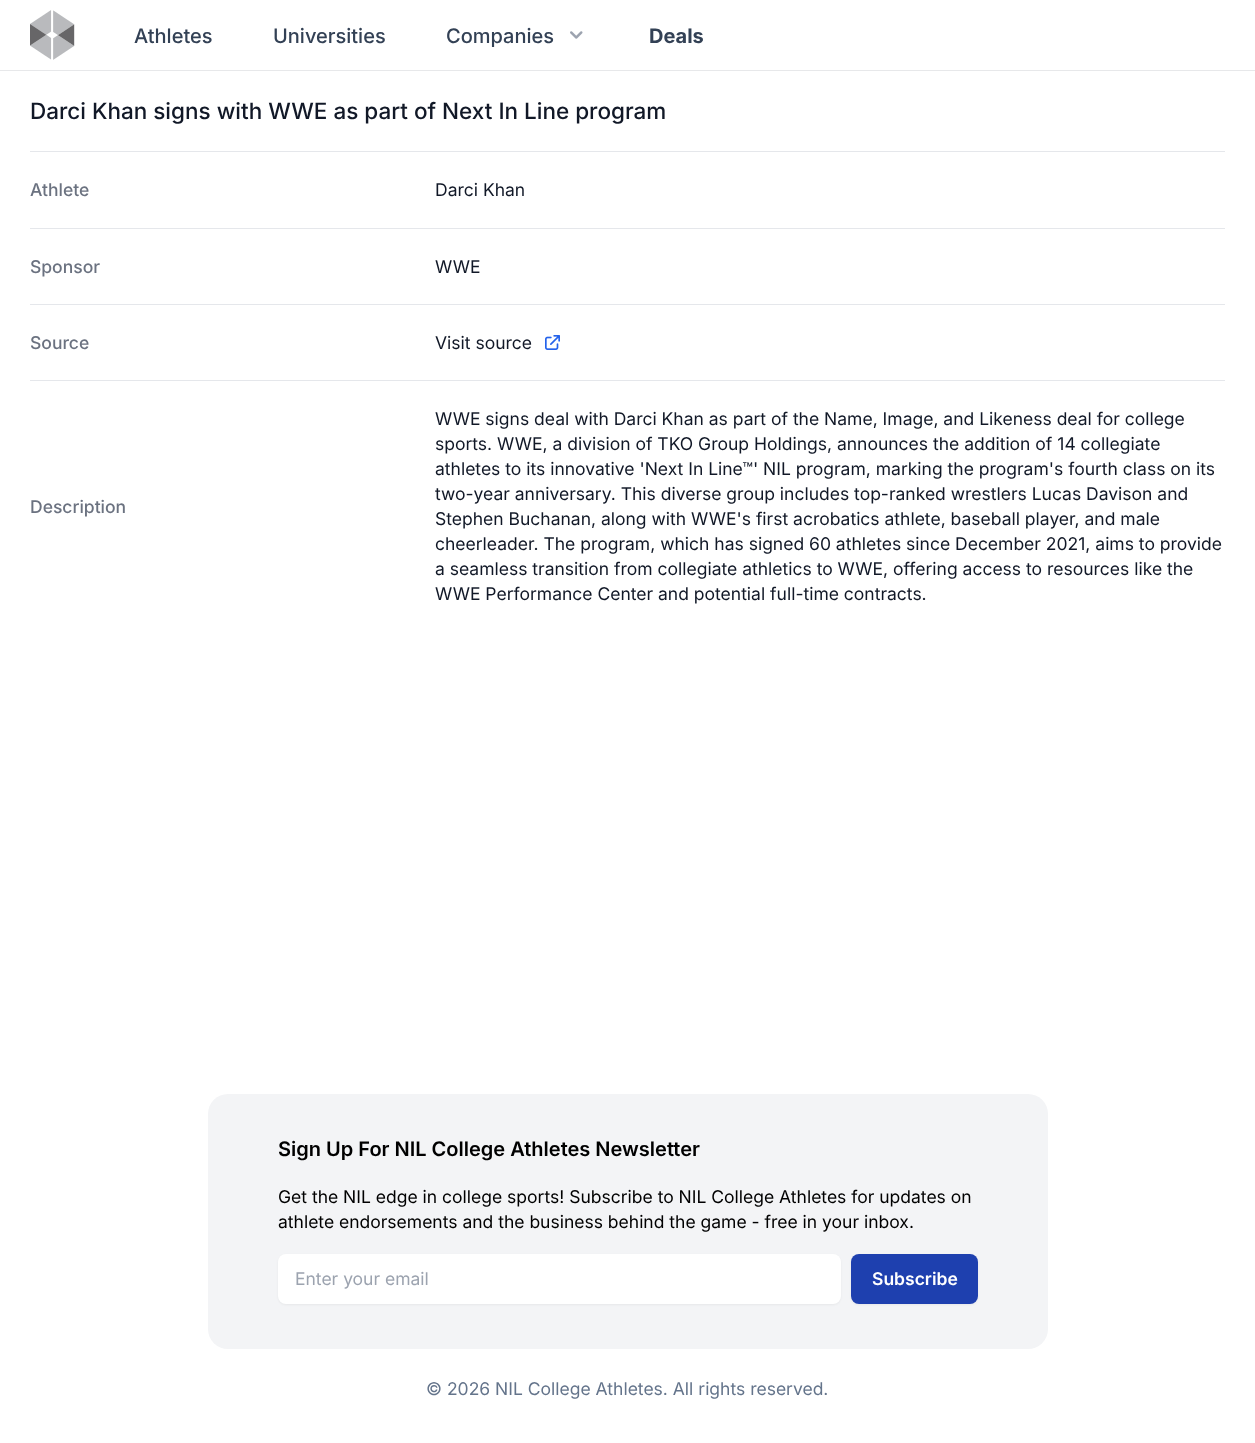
<svg xmlns="http://www.w3.org/2000/svg" width="1255" height="1443">
	<rect width="100%" height="100%" fill="#FFFFFF" />
	<rect x="0" y="70" width="1255" height="1" fill="#E7E8EA" />
	<image x="30" y="10" width="45" height="50" href="assets/img1.png" />
	<g font-family="Inter" font-size="20" font-weight="500" fill="#334155">
		<text x="134" y="43">Athletes</text>
		<text x="273" y="43">Universities</text>
		<text x="446" y="43">Companies</text>
	</g>
	<image x="570" y="31" width="13" height="8" href="assets/img2.png" />
	<text x="649" y="43" font-family="Inter" font-size="20" font-weight="700" fill="#334155">Deals</text>
	<text x="30" y="119" font-family="Inter" font-size="22.5" font-weight="500" fill="#111827">Darci Khan signs with WWE as part of Next In Line program</text>
	<rect x="30" y="151" width="1195" height="1" fill="#E5E7EB" />
	<text x="30" y="196" font-family="Inter" font-size="17.5" font-weight="500" fill="#6B7280">Athlete</text>
	<text x="435" y="196" font-family="Inter" font-size="17.5" fill="#111827">Darci Khan</text>
	<rect x="30" y="228" width="1195" height="1" fill="#E5E7EB" />
	<text x="30" y="273" font-family="Inter" font-size="17.5" font-weight="500" fill="#6B7280">Sponsor</text>
	<text x="435" y="273" font-family="Inter" font-size="17.5" fill="#111827">WWE</text>
	<rect x="30" y="304" width="1195" height="1" fill="#E5E7EB" />
	<text x="30" y="349" font-family="Inter" font-size="17.5" font-weight="500" fill="#6B7280">Source</text>
	<text x="435" y="349" font-family="Inter" font-size="17.5" fill="#111827">Visit source</text>
	<image x="545" y="335" width="15" height="15" href="assets/img3.png" />
	<rect x="30" y="380" width="1195" height="1" fill="#E5E7EB" />
	<text x="30" y="513" font-family="Inter" font-size="17.5" font-weight="500" fill="#6B7280">Description</text>
	<g font-family="Inter" font-size="17.5" fill="#111827">
		<text x="435" y="425">WWE signs deal with Darci Khan as part of the Name, Image, and Likeness deal for college</text>
		<text x="435" y="450">sports. WWE, a division of TKO Group Holdings, announces the addition of 14 collegiate</text>
		<text x="435" y="475">athletes to its innovative 'Next In Line™' NIL program, marking the program's fourth class on its</text>
		<text x="435" y="500">two-year anniversary. This diverse group includes top-ranked wrestlers Lucas Davison and</text>
		<text x="435" y="525">Stephen Buchanan, along with WWE's first acrobatics athlete, baseball player, and male</text>
		<text x="435" y="550">cheerleader. The program, which has signed 60 athletes since December 2021, aims to provide</text>
		<text x="435" y="575">a seamless transition from collegiate athletics to WWE, offering access to resources like the</text>
		<text x="435" y="600">WWE Performance Center and potential full-time contracts.</text>
	</g>
	<rect x="208" y="1094" width="840" height="255" rx="20" fill="#F3F4F6" />
	<text x="278" y="1156" font-family="Inter" font-size="20" font-weight="600" fill="#000000">Sign Up For NIL College Athletes Newsletter</text>
	<g font-family="Inter" font-size="17.5" fill="#000000">
		<text x="278" y="1203">Get the NIL edge in college sports! Subscribe to NIL College Athletes for updates on</text>
		<text x="278" y="1228">athlete endorsements and the business behind the game - free in your inbox.</text>
	</g>
	<rect x="278" y="1255" width="563" height="50" rx="8" fill="#000000" fill-opacity="0.05" filter="blur(1px)" />
	<rect x="278" y="1254" width="563" height="50" rx="8" fill="#FFFFFF" />
	<text x="295" y="1285" font-family="Inter" font-size="17.5" fill="#9CA3AF">Enter your email</text>
	<rect x="851" y="1255" width="127" height="50" rx="8" fill="#000000" fill-opacity="0.05" filter="blur(1px)" />
	<rect x="851" y="1254" width="127" height="50" rx="8" fill="#1E40AF" />
	<text x="872" y="1285" font-family="Inter" font-size="17.5" font-weight="600" fill="#FFFFFF">Subscribe</text>
	<text x="426" y="1395" font-family="Inter" font-size="17.5" fill="#64748B">© 2026 NIL College Athletes. All rights reserved.</text>
</svg>
